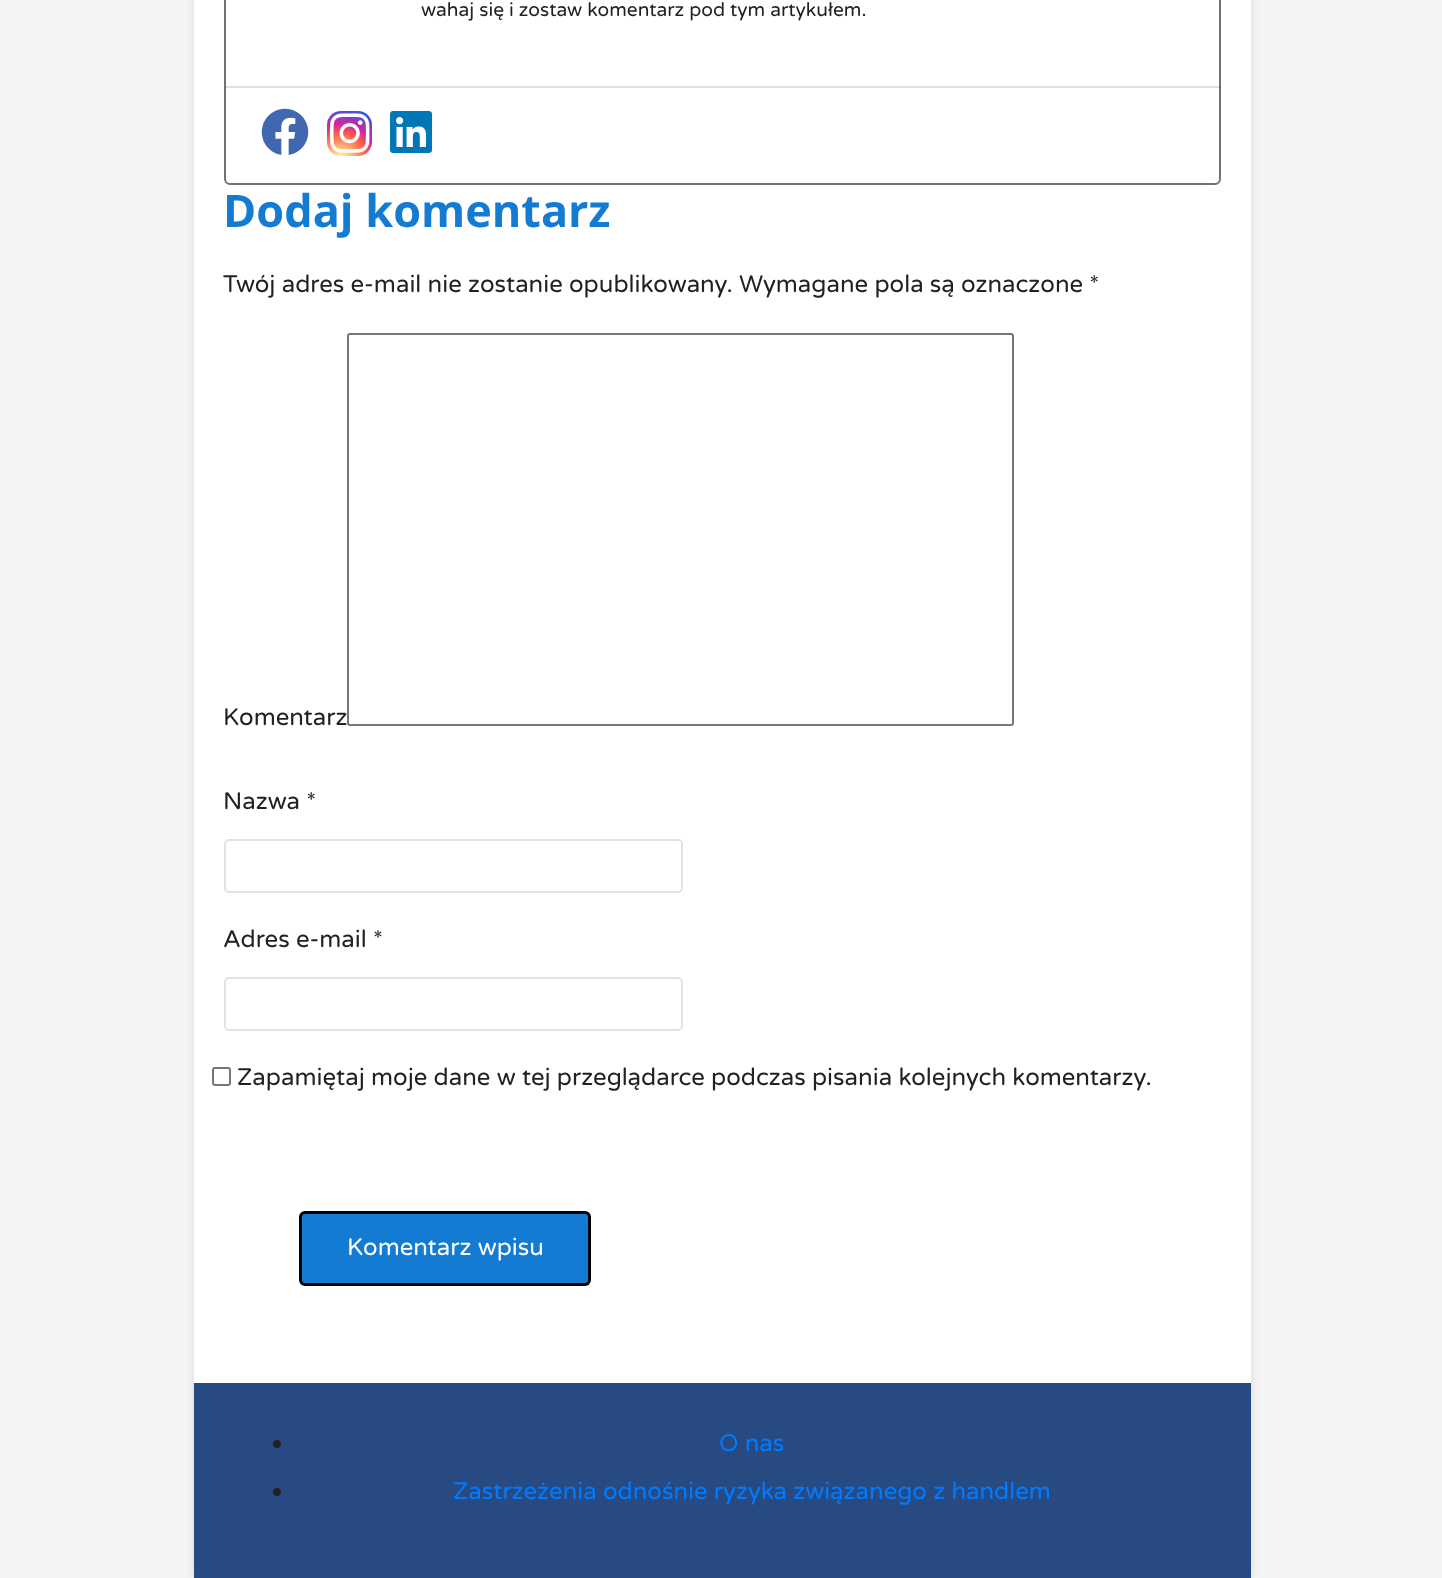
<svg xmlns="http://www.w3.org/2000/svg" width="1442" height="1578">
	<defs>
		<radialGradient id="g1" gradientUnits="userSpaceOnUse" cx="341" cy="159" r="58"><stop offset="0" stop-color="#FDF497" /><stop offset="0.05" stop-color="#FDF497" /><stop offset="0.45" stop-color="#FD5949" /><stop offset="0.6" stop-color="#D6249F" /><stop offset="0.9" stop-color="#285AEB" /></radialGradient>
	</defs>
	<rect width="100%" height="100%" fill="#F4F4F4" />
	<rect x="194" y="-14" width="1057" height="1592" fill="#000000" fill-opacity="0.1" filter="blur(4.5px)" />
	<rect x="194" y="0" width="1057" height="1383" fill="#FFFFFF" />
	<rect x="225" y="-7" width="995" height="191" rx="5" fill="none" stroke="#6C757D" stroke-width="2" />
	<text x="421" y="16" font-family="Varela Round" font-size="19.2" fill="#222222">wahaj się i zostaw komentarz pod tym artykułem.</text>
	<rect x="225" y="86" width="995" height="2" fill="#000000" fill-opacity="0.12" />
	<image x="261" y="108" width="48" height="47" href="assets/img1.png" />
	<rect x="327" y="111" width="45" height="45" rx="14" fill="url(#g1)" />
	<image x="330" y="113" width="40" height="40" href="assets/img2.png" />
	<image x="390" y="111" width="42" height="42" href="assets/img3.png" />
	<text x="223" y="227" font-family="Open Sans" font-size="45" font-weight="700" fill="#137BD1">Dodaj komentarz</text>
	<g font-family="Varela Round" font-size="24" fill="#222222">
		<text x="223" y="292">Twój adres e-mail nie zostanie opublikowany. Wymagane pola są oznaczone *</text>
		<text x="223" y="725">Komentarz</text>
	</g>
	<rect x="348" y="334" width="665" height="391" rx="2" fill="none" stroke="#767676" stroke-width="2" />
	<text x="223" y="809" font-family="Varela Round" font-size="24" fill="#222222">Nazwa *</text>
	<rect x="225" y="840" width="457" height="52" rx="4" fill="none" stroke="#E2E2E2" stroke-width="2" />
	<text x="223" y="947" font-family="Varela Round" font-size="24" fill="#222222">Adres e-mail *</text>
	<rect x="225" y="978" width="457" height="52" rx="4" fill="none" stroke="#E2E2E2" stroke-width="2" />
	<rect x="213" y="1068" width="17" height="17" rx="2" fill="none" stroke="#767676" stroke-width="2" />
	<text x="237" y="1085" font-family="Varela Round" font-size="24" fill="#222222">Zapamiętaj moje dane w tej przeglądarce podczas pisania kolejnych komentarzy.</text>
	<rect x="300.5" y="1212.5" width="289" height="72" rx="4.5" fill="#137BD1" stroke="#000000" stroke-width="3" />
	<text x="347" y="1255" font-family="Varela Round" font-size="24" fill="#FFFFFF">Komentarz wpisu</text>
	<rect x="194" y="1383" width="1057" height="195" fill="#274A82" />
	<circle cx="277" cy="1444" r="4" fill="#222222" />
	<text x="719" y="1451" font-family="Varela Round" font-size="24" fill="#007BFF">O nas</text>
	<circle cx="277" cy="1492" r="4" fill="#222222" />
	<text x="453" y="1499" font-family="Varela Round" font-size="24" fill="#007BFF">Zastrzeżenia odnośnie ryzyka związanego z handlem</text>
</svg>
